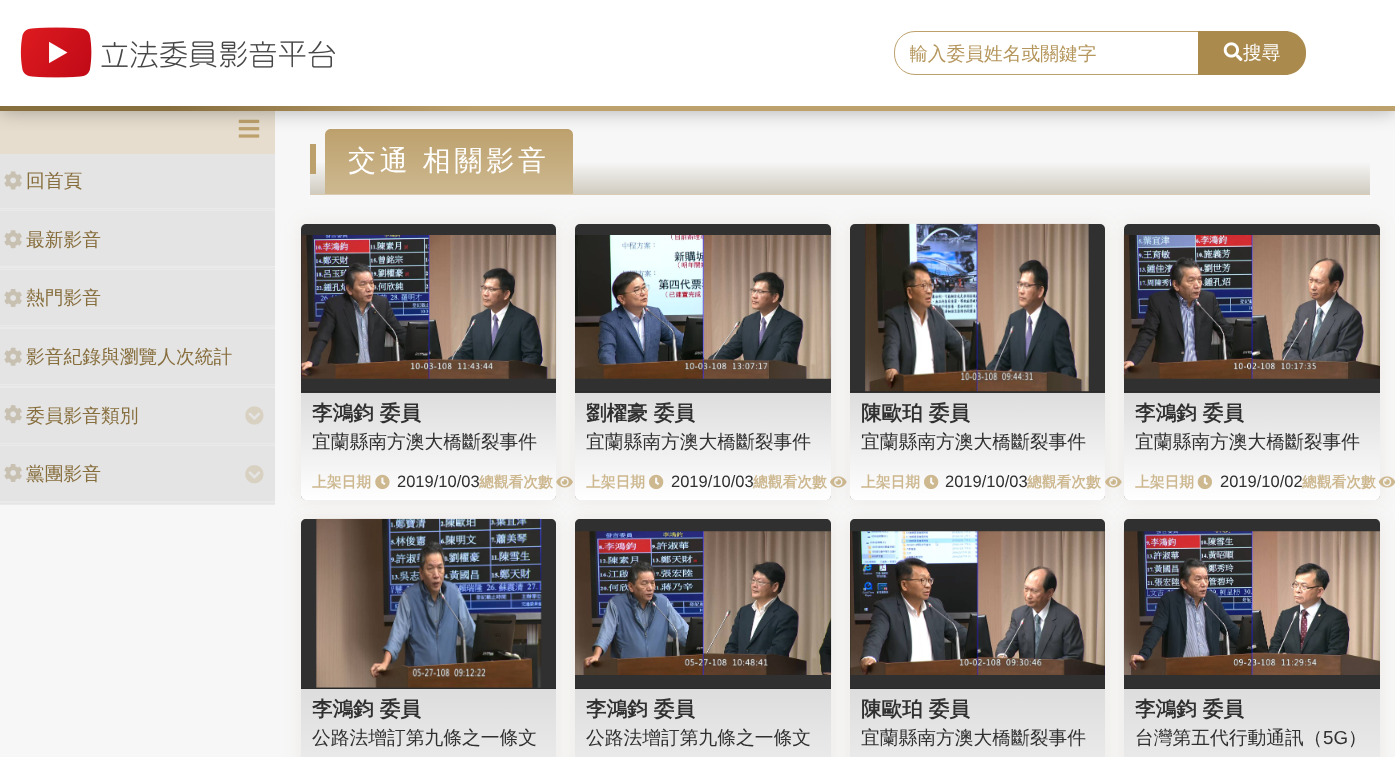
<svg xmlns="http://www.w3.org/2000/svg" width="1395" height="757">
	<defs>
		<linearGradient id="g1" gradientUnits="userSpaceOnUse" x1="840" y1="129" x2="840" y2="194"><stop offset="0.5" stop-color="#F7F7F7" /><stop offset="1" stop-color="#D0CBC0" /></linearGradient>
		<linearGradient id="g2" gradientUnits="userSpaceOnUse" x1="449" y1="129" x2="449" y2="194"><stop offset="0" stop-color="#BDA16D" /><stop offset="1" stop-color="#CDB890" /></linearGradient>
		<linearGradient id="g3" gradientUnits="userSpaceOnUse" x1="0" y1="56" x2="1395" y2="56"><stop offset="0.12" stop-color="#876E3D" /><stop offset="0.34" stop-color="#BDA16D" /></linearGradient>
		<clipPath id="clip1"><rect x="910" y="43" width="274" height="23" /></clipPath>
		<linearGradient id="g4" gradientUnits="userSpaceOnUse" x1="429" y1="393" x2="429" y2="500"><stop offset="0" stop-color="#DDDDDD" /><stop offset="1" stop-color="#FFFFFF" /></linearGradient>
		<linearGradient id="g5" gradientUnits="userSpaceOnUse" x1="703" y1="393" x2="703" y2="500"><stop offset="0" stop-color="#DDDDDD" /><stop offset="1" stop-color="#FFFFFF" /></linearGradient>
		<linearGradient id="g6" gradientUnits="userSpaceOnUse" x1="978" y1="393" x2="978" y2="500"><stop offset="0" stop-color="#DDDDDD" /><stop offset="1" stop-color="#FFFFFF" /></linearGradient>
		<linearGradient id="g7" gradientUnits="userSpaceOnUse" x1="1252" y1="393" x2="1252" y2="500"><stop offset="0" stop-color="#DDDDDD" /><stop offset="1" stop-color="#FFFFFF" /></linearGradient>
		<linearGradient id="g8" gradientUnits="userSpaceOnUse" x1="429" y1="689" x2="429" y2="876"><stop offset="0" stop-color="#DDDDDD" /><stop offset="1" stop-color="#FFFFFF" /></linearGradient>
		<linearGradient id="g9" gradientUnits="userSpaceOnUse" x1="703" y1="689" x2="703" y2="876"><stop offset="0" stop-color="#DDDDDD" /><stop offset="1" stop-color="#FFFFFF" /></linearGradient>
		<linearGradient id="g10" gradientUnits="userSpaceOnUse" x1="978" y1="689" x2="978" y2="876"><stop offset="0" stop-color="#DDDDDD" /><stop offset="1" stop-color="#FFFFFF" /></linearGradient>
		<linearGradient id="g11" gradientUnits="userSpaceOnUse" x1="1252" y1="689" x2="1252" y2="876"><stop offset="0" stop-color="#DDDDDD" /><stop offset="1" stop-color="#FFFFFF" /></linearGradient>
	</defs>
	<rect width="100%" height="100%" fill="#F7F7F7" />
	<rect x="0" y="111" width="275" height="43" fill="#E6DDCE" />
	<image x="238" y="119" width="22" height="19" href="assets/img3.png" />
	<rect x="310" y="163" width="1060" height="31" fill="url(#g1)" />
	<path d="M331 129H567C570.5 129 573 131.5 573 135V194H325V135C325 131.5 327.5 129 331 129Z" fill="url(#g2)" />
	<rect x="0" y="0" width="1395" height="111" fill="#000000" fill-opacity="0.3" filter="blur(9.5px)" />
	<rect x="0" y="106" width="1395" height="5" fill="url(#g3)" />
	<rect x="0" y="0" width="1395" height="106" fill="#FFFFFF" />
	<image x="20" y="27" width="315" height="51" href="assets/img1.png" />
	<path d="M915 31.5H1198.5V74.5H915C903.5 74.5 894.5 65.5 894.5 54V52C894.5 40.5 903.5 31.5 915 31.5Z" fill="none" stroke="#BDA16D" />
	<g clip-path="url(#clip1)">
		<text x="909" y="60" font-family="WenQuanYi Zen Hei" font-size="18.75" font-weight="500" fill="#B5965C">輸入委員姓名或關鍵字</text>
	</g>
	<path d="M1198 31H1285C1296.5 31 1306 40.5 1306 52V54C1306 65.5 1296.5 75 1285 75H1198Z" fill="#AA8A4D" />
	<image x="1223" y="42" width="20" height="19" href="assets/img2.png" />
	<text x="1243" y="59" font-family="WenQuanYi Zen Hei" font-size="18.75" font-weight="500" fill="#FFFFFF">搜尋</text>
	<rect x="0" y="208" width="275" height="297" fill="#EAEAEA" />
	<rect x="0" y="209" width="275" height="1" fill="#E5E5E5" />
	<rect x="0" y="154" width="275" height="54" fill="#E4E4E4" />
	<image x="4" y="171" width="18" height="19" href="assets/img4.png" />
	<text x="26" y="187" font-family="WenQuanYi Zen Hei" font-size="18.75" font-weight="500" fill="#876E3D">回首頁</text>
	<rect x="0" y="268" width="275" height="1" fill="#E5E5E5" />
	<rect x="0" y="211" width="275" height="55" fill="#E4E4E4" />
	<image x="4" y="230" width="18" height="19" href="assets/img5.png" />
	<text x="26" y="246" font-family="WenQuanYi Zen Hei" font-size="18.75" font-weight="500" fill="#876E3D">最新影音</text>
	<rect x="0" y="326" width="275" height="1" fill="#E5E5E5" />
	<rect x="0" y="270" width="275" height="55" fill="#E4E4E4" />
	<image x="4" y="289" width="18" height="18" href="assets/img6.png" />
	<text x="26" y="304" font-family="WenQuanYi Zen Hei" font-size="18.75" font-weight="500" fill="#876E3D">熱門影音</text>
	<rect x="0" y="385" width="275" height="1" fill="#E5E5E5" />
	<rect x="0" y="329" width="275" height="55" fill="#E4E4E4" />
	<image x="4" y="347" width="18" height="19" href="assets/img7.png" />
	<text x="26" y="363" font-family="WenQuanYi Zen Hei" font-size="18.75" font-weight="500" fill="#876E3D">影音紀錄與瀏覽人次統計</text>
	<rect x="0" y="444" width="275" height="1" fill="#E5E5E5" />
	<rect x="0" y="388" width="275" height="55" fill="#E4E4E4" />
	<image x="4" y="405" width="18" height="19" href="assets/img5.png" />
	<text x="26" y="422" font-family="WenQuanYi Zen Hei" font-size="18.75" font-weight="500" fill="#876E3D">委員影音類別</text>
	<image x="245" y="406" width="19" height="19" href="assets/img8.png" />
	<rect x="0" y="503" width="275" height="1" fill="#E5E5E5" />
	<rect x="0" y="446" width="275" height="55" fill="#E4E4E4" />
	<image x="4" y="464" width="18" height="18" href="assets/img6.png" />
	<text x="26" y="480" font-family="WenQuanYi Zen Hei" font-size="18.75" font-weight="500" fill="#876E3D">黨團影音</text>
	<image x="245" y="465" width="19" height="19" href="assets/img9.png" />
	<rect x="310" y="194" width="1060" height="1" fill="#DACCB2" />
	<rect x="310" y="144" width="6" height="30" fill="#BDA16D" />
	<text x="348" y="170" word-spacing="-1" font-family="WenQuanYi Zen Hei" font-size="28" font-weight="500" letter-spacing="3.75" fill="#FFFFFF">交通 相關影音</text>
	<rect x="301" y="224" width="255" height="276" rx="5" fill="#876E3D" fill-opacity="0.1" filter="blur(9px)" />
	<rect x="301" y="224" width="255" height="276" rx="5" fill="#303030" />
	<image x="301" y="235" width="256" height="144" href="assets/img10.png" />
	<rect x="301" y="391" width="255" height="1" fill="#2A2A2A" />
	<path d="M301 393H556V495C556 498 554 500 551 500H306C303 500 301 498 301 495Z" fill="url(#g4)" />
	<text x="312" y="420" font-family="WenQuanYi Zen Hei" font-size="20.5" font-weight="700" fill="#303030">李鴻鈞 委員</text>
	<text x="312" y="448" font-family="WenQuanYi Zen Hei" font-size="18.75" font-weight="500" fill="#303030">宜蘭縣南方澳大橋斷裂事件</text>
	<image x="375" y="474" width="15" height="16" href="assets/img11.png" />
	<text x="312" y="487" font-family="WenQuanYi Zen Hei" font-size="14.75" font-weight="700" fill="#CDB890">上架日期</text>
	<text x="397" y="487" font-family="Liberation Sans" font-size="16.5" fill="#303030">2019/10/03</text>
	<image x="556" y="476" width="17" height="12" href="assets/img12.png" />
	<text x="479" y="487" font-family="WenQuanYi Zen Hei" font-size="14.75" font-weight="700" fill="#CDB890">總觀看次數</text>
	<rect x="575" y="224" width="256" height="276" rx="5" fill="#876E3D" fill-opacity="0.1" filter="blur(9px)" />
	<rect x="575" y="224" width="256" height="276" rx="5" fill="#303030" />
	<image x="575" y="235" width="257" height="144" href="assets/img13.png" />
	<rect x="575" y="391" width="256" height="1" fill="#2A2A2A" />
	<path d="M575 393H831V495C831 498 829 500 826 500H580C577 500 575 498 575 495Z" fill="url(#g5)" />
	<text x="586" y="420" font-family="WenQuanYi Zen Hei" font-size="20.5" font-weight="700" fill="#303030">劉櫂豪 委員</text>
	<text x="586" y="448" font-family="WenQuanYi Zen Hei" font-size="18.75" font-weight="500" fill="#303030">宜蘭縣南方澳大橋斷裂事件</text>
	<image x="649" y="474" width="15" height="16" href="assets/img14.png" />
	<text x="586" y="487" font-family="WenQuanYi Zen Hei" font-size="14.75" font-weight="700" fill="#CDB890">上架日期</text>
	<text x="671" y="487" font-family="Liberation Sans" font-size="16.5" fill="#303030">2019/10/03</text>
	<image x="830" y="476" width="17" height="12" href="assets/img15.png" />
	<text x="753" y="487" font-family="WenQuanYi Zen Hei" font-size="14.75" font-weight="700" fill="#CDB890">總觀看次數</text>
	<rect x="850" y="224" width="255" height="276" rx="5" fill="#876E3D" fill-opacity="0.1" filter="blur(9px)" />
	<rect x="850" y="224" width="255" height="276" rx="5" fill="#303030" />
	<image x="865" y="223" width="224" height="169" href="assets/img16.png" />
	<rect x="850" y="391" width="255" height="1" fill="#000000" fill-opacity="0.12" />
	<path d="M850 393H1105V495C1105 498 1103 500 1100 500H855C852 500 850 498 850 495Z" fill="url(#g6)" />
	<text x="861" y="420" font-family="WenQuanYi Zen Hei" font-size="20.5" font-weight="700" fill="#303030">陳歐珀 委員</text>
	<text x="861" y="448" font-family="WenQuanYi Zen Hei" font-size="18.75" font-weight="500" fill="#303030">宜蘭縣南方澳大橋斷裂事件</text>
	<image x="924" y="474" width="15" height="16" href="assets/img14.png" />
	<text x="861" y="487" font-family="WenQuanYi Zen Hei" font-size="14.75" font-weight="700" fill="#CDB890">上架日期</text>
	<text x="945" y="487" font-family="Liberation Sans" font-size="16.5" fill="#303030">2019/10/03</text>
	<image x="1105" y="476" width="17" height="12" href="assets/img17.png" />
	<text x="1027" y="487" font-family="WenQuanYi Zen Hei" font-size="14.75" font-weight="700" fill="#CDB890">總觀看次數</text>
	<rect x="1124" y="224" width="256" height="276" rx="5" fill="#876E3D" fill-opacity="0.1" filter="blur(9px)" />
	<rect x="1124" y="224" width="256" height="276" rx="5" fill="#303030" />
	<image x="1123" y="235" width="257" height="144" href="assets/img18.png" />
	<rect x="1124" y="391" width="256" height="1" fill="#2A2A2A" />
	<path d="M1124 393H1380V495C1380 498 1378 500 1375 500H1129C1126 500 1124 498 1124 495Z" fill="url(#g7)" />
	<text x="1135" y="420" font-family="WenQuanYi Zen Hei" font-size="20.5" font-weight="700" fill="#303030">李鴻鈞 委員</text>
	<text x="1135" y="448" font-family="WenQuanYi Zen Hei" font-size="18.75" font-weight="500" fill="#303030">宜蘭縣南方澳大橋斷裂事件</text>
	<image x="1197" y="474" width="15" height="16" href="assets/img19.png" />
	<text x="1135" y="487" font-family="WenQuanYi Zen Hei" font-size="14.75" font-weight="700" fill="#CDB890">上架日期</text>
	<text x="1220" y="487" font-family="Liberation Sans" font-size="16.5" fill="#303030">2019/10/02</text>
	<image x="1378" y="476" width="17" height="12" href="assets/img20.png" />
	<text x="1302" y="487" font-family="WenQuanYi Zen Hei" font-size="14.75" font-weight="700" fill="#CDB890">總觀看次數</text>
	<rect x="301" y="519" width="255" height="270" rx="5" fill="#876E3D" fill-opacity="0.1" filter="blur(9px)" />
	<path d="M306 519H551C554 519 556 521 556 524V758H301V524C301 521 303 519 306 519Z" fill="#303030" />
	<image x="316" y="518" width="226" height="170" href="assets/img21.png" />
	<rect x="301" y="688" width="255" height="1" fill="#2A2A2A" />
	<rect x="301" y="689" width="255" height="68" fill="url(#g8)" />
	<text x="312" y="716" font-family="WenQuanYi Zen Hei" font-size="20.5" font-weight="700" fill="#303030">李鴻鈞 委員</text>
	<text x="312" y="744" font-family="WenQuanYi Zen Hei" font-size="18.75" font-weight="500" fill="#303030">公路法增訂第九條之一條文</text>
	<rect x="575" y="519" width="256" height="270" rx="5" fill="#876E3D" fill-opacity="0.1" filter="blur(9px)" />
	<path d="M580 519H826C829 519 831 521 831 524V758H575V524C575 521 577 519 580 519Z" fill="#303030" />
	<image x="575" y="531" width="257" height="144" href="assets/img22.png" />
	<rect x="575" y="688" width="256" height="1" fill="#2A2A2A" />
	<rect x="575" y="689" width="256" height="68" fill="url(#g9)" />
	<text x="586" y="716" font-family="WenQuanYi Zen Hei" font-size="20.5" font-weight="700" fill="#303030">李鴻鈞 委員</text>
	<text x="586" y="744" font-family="WenQuanYi Zen Hei" font-size="18.75" font-weight="500" fill="#303030">公路法增訂第九條之一條文</text>
	<rect x="850" y="519" width="255" height="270" rx="5" fill="#876E3D" fill-opacity="0.1" filter="blur(9px)" />
	<path d="M855 519H1100C1103 519 1105 521 1105 524V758H850V524C850 521 852 519 855 519Z" fill="#303030" />
	<image x="850" y="531" width="255" height="144" href="assets/img23.png" />
	<rect x="850" y="688" width="255" height="1" fill="#2A2A2A" />
	<rect x="850" y="689" width="255" height="68" fill="url(#g10)" />
	<text x="861" y="716" font-family="WenQuanYi Zen Hei" font-size="20.5" font-weight="700" fill="#303030">陳歐珀 委員</text>
	<text x="861" y="744" font-family="WenQuanYi Zen Hei" font-size="18.75" font-weight="500" fill="#303030">宜蘭縣南方澳大橋斷裂事件</text>
	<rect x="1124" y="519" width="256" height="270" rx="5" fill="#876E3D" fill-opacity="0.1" filter="blur(9px)" />
	<path d="M1129 519H1375C1378 519 1380 521 1380 524V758H1124V524C1124 521 1126 519 1129 519Z" fill="#303030" />
	<image x="1123" y="531" width="257" height="144" href="assets/img24.png" />
	<rect x="1124" y="688" width="256" height="1" fill="#2A2A2A" />
	<rect x="1124" y="689" width="256" height="68" fill="url(#g11)" />
	<text x="1135" y="716" font-family="WenQuanYi Zen Hei" font-size="20.5" font-weight="700" fill="#303030">李鴻鈞 委員</text>
	<text x="1135" y="744" font-family="WenQuanYi Zen Hei" font-size="18.75" font-weight="500" fill="#303030">台灣第五代行動通訊（</text>
	<text x="1323" y="744" font-family="Liberation Sans" font-size="18.75" fill="#303030">5G</text>
	<text x="1348" y="744" font-family="WenQuanYi Zen Hei" font-size="18.75" font-weight="500" fill="#303030">）</text>
</svg>
